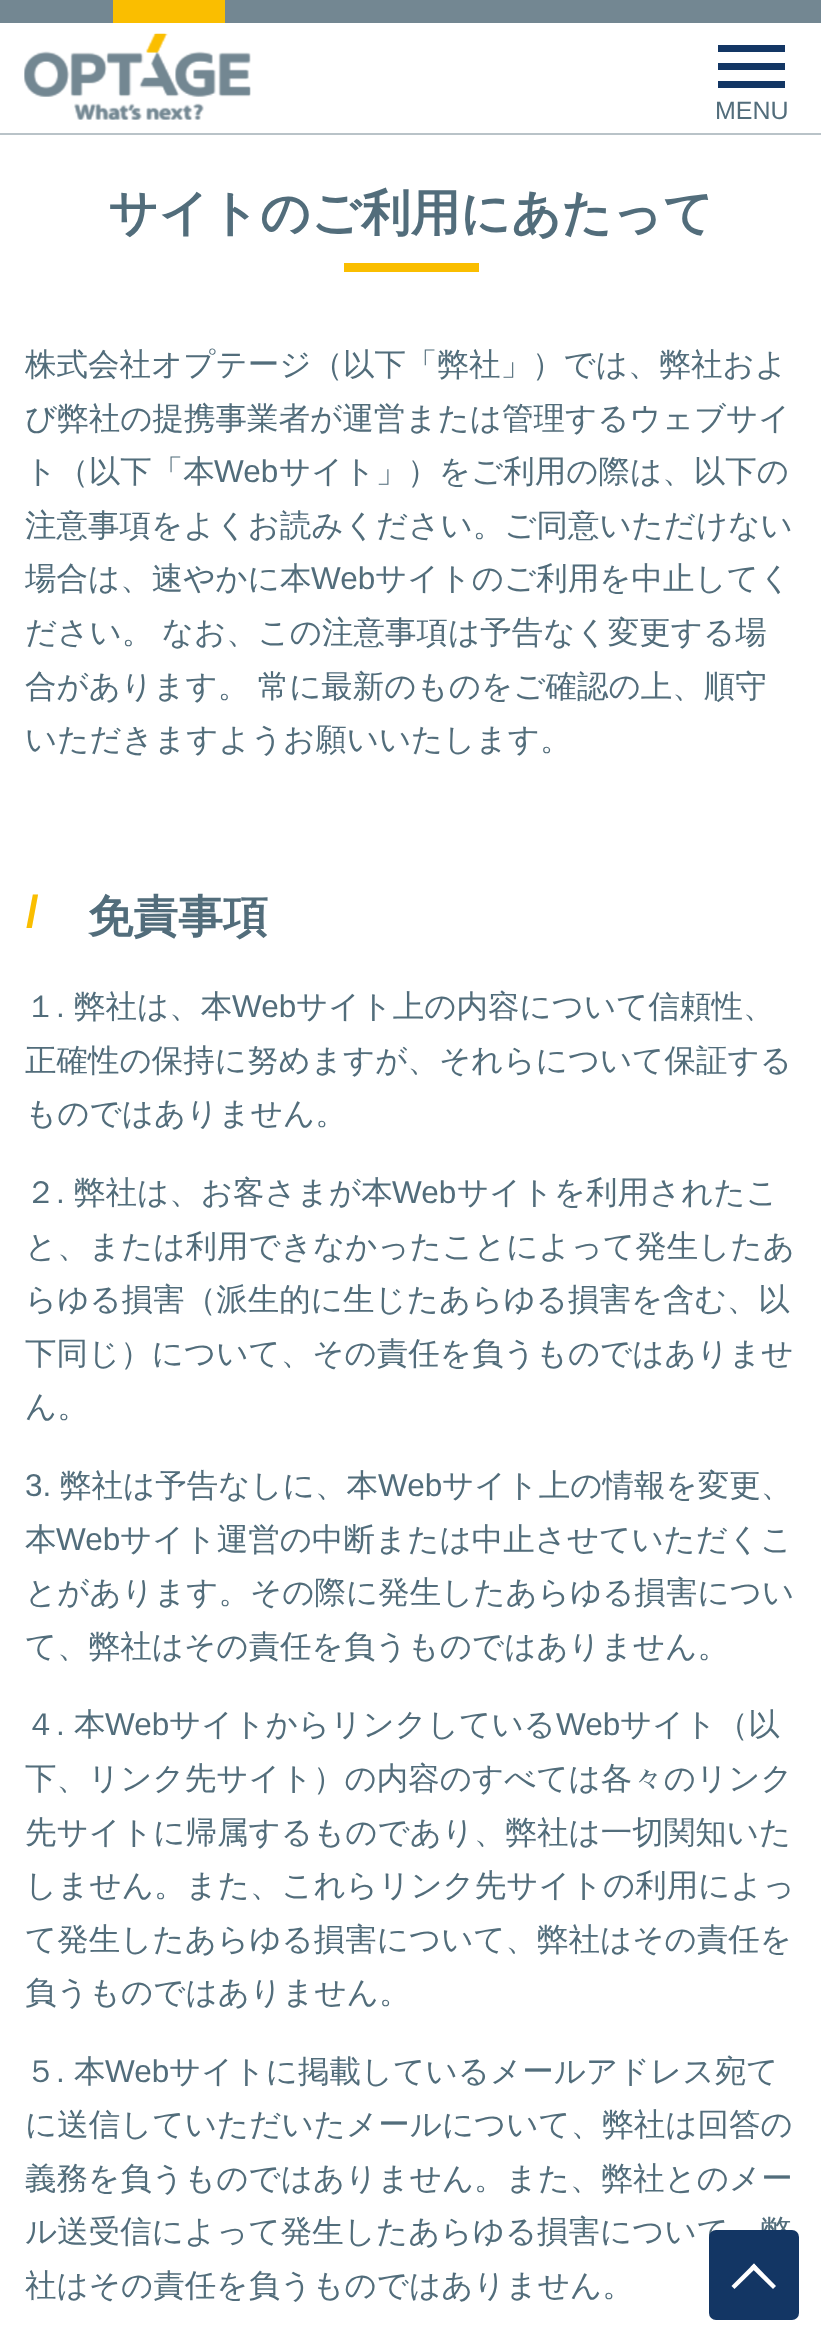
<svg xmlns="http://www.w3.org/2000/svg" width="821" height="2341">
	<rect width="100%" height="100%" fill="#FFFFFF" />
	<rect x="0" y="0" width="821" height="23" fill="#738792" />
	<rect x="0" y="133" width="821" height="2" fill="#B9C3C8" />
	<rect x="113" y="0" width="112" height="23" fill="#FABE00" />
	<image x="24" y="33" width="227" height="87" href="assets/img1.png" />
	<image x="24" y="34" width="227" height="86" href="assets/img2.png" />
	<rect x="718" y="45" width="67" height="7" fill="#133664" />
	<rect x="718" y="63" width="67" height="7" fill="#133664" />
	<rect x="718" y="81" width="67" height="7" fill="#133664" />
	<text x="715" y="119" font-family="Liberation Sans" font-size="25" fill="#526D7B">MENU</text>
	<text x="108" y="230" font-family="WenQuanYi Zen Hei" font-size="49.5" font-weight="700" fill="#526D7B">サイトのご利用にあたって</text>
	<rect x="344" y="263" width="135" height="9" fill="#FABE00" />
	<g font-family="WenQuanYi Zen Hei" font-size="31.5" font-weight="500" fill="#526D7B">
		<text x="25" y="375">株式会社オプテージ（以下「弊社」）では、弊社およ</text>
		<text x="25" y="429">び弊社の提携事業者が運営または管理するウェブサイ</text>
		<text x="25" y="482">ト（以下「本</text>
	</g>
	<text x="214" y="482" font-family="Liberation Sans" font-size="31.5" fill="#526D7B">Web</text>
	<g font-family="WenQuanYi Zen Hei" font-size="31.5" font-weight="500" fill="#526D7B">
		<text x="279" y="482">サイト」）をご利用の際は、以下の</text>
		<text x="25" y="536">注意事項をよくお読みください。ご同意いただけない</text>
		<text x="25" y="589">場合は、速やかに本</text>
	</g>
	<text x="311" y="589" font-family="Liberation Sans" font-size="31.5" fill="#526D7B">Web</text>
	<g font-family="WenQuanYi Zen Hei" font-size="31.5" font-weight="500" fill="#526D7B">
		<text x="375" y="589">サイトのご利用を中止してく</text>
		<text x="25" y="643" word-spacing="-1">ださい。 なお、この注意事項は予告なく変更する場</text>
		<text x="25" y="697" word-spacing="-1">合があります。 常に最新のものをご確認の上、順守</text>
		<text x="25" y="750">いただきますようお願いいたします。</text>
	</g>
	<text x="26" y="927" font-family="Liberation Sans" font-size="45" font-weight="700" letter-spacing="6" fill="#FABE00">/</text>
	<text x="88" y="932" font-family="WenQuanYi Zen Hei" font-size="45" font-weight="700" fill="#526D7B">免責事項</text>
	<text x="25" y="1017" font-family="WenQuanYi Zen Hei" font-size="31.5" font-weight="500" fill="#526D7B">１</text>
	<text x="56" y="1017" font-family="Liberation Sans" font-size="31.5" fill="#526D7B">.</text>
	<text x="74" y="1017" font-family="WenQuanYi Zen Hei" font-size="31.5" font-weight="500" fill="#526D7B">弊社は、本</text>
	<text x="232" y="1017" font-family="Liberation Sans" font-size="31.5" fill="#526D7B">Web</text>
	<g font-family="WenQuanYi Zen Hei" font-size="31.5" font-weight="500" fill="#526D7B">
		<text x="296" y="1017">サイト上の内容について信頼性、</text>
		<text x="25" y="1071">正確性の保持に努めますが、それらについて保証する</text>
		<text x="25" y="1124">ものではありません。</text>
		<text x="25" y="1203">２</text>
	</g>
	<text x="56" y="1203" font-family="Liberation Sans" font-size="31.5" fill="#526D7B">.</text>
	<text x="74" y="1203" font-family="WenQuanYi Zen Hei" font-size="31.5" font-weight="500" fill="#526D7B">弊社は、お客さまが本</text>
	<text x="392" y="1203" font-family="Liberation Sans" font-size="31.5" fill="#526D7B">Web</text>
	<g font-family="WenQuanYi Zen Hei" font-size="31.5" font-weight="500" fill="#526D7B">
		<text x="457" y="1203">サイトを利用されたこ</text>
		<text x="25" y="1257">と、または利用できなかったことによって発生したあ</text>
		<text x="25" y="1310">らゆる損害（派生的に生じたあらゆる損害を含む、以</text>
		<text x="25" y="1364">下同じ）について、その責任を負うものではありませ</text>
		<text x="25" y="1417">ん。</text>
	</g>
	<text x="25" y="1496" font-family="Liberation Sans" font-size="31.5" fill="#526D7B">3.</text>
	<text x="60" y="1496" font-family="WenQuanYi Zen Hei" font-size="31.5" font-weight="500" fill="#526D7B">弊社は予告なしに、本</text>
	<text x="378" y="1496" font-family="Liberation Sans" font-size="31.5" fill="#526D7B">Web</text>
	<g font-family="WenQuanYi Zen Hei" font-size="31.5" font-weight="500" fill="#526D7B">
		<text x="442" y="1496">サイト上の情報を変更、</text>
		<text x="25" y="1550">本</text>
	</g>
	<text x="56" y="1550" font-family="Liberation Sans" font-size="31.5" fill="#526D7B">Web</text>
	<g font-family="WenQuanYi Zen Hei" font-size="31.5" font-weight="500" fill="#526D7B">
		<text x="120" y="1550">サイト運営の中断または中止させていただくこ</text>
		<text x="25" y="1603">とがあります。その際に発生したあらゆる損害につい</text>
		<text x="25" y="1657">て、弊社はその責任を負うものではありません。</text>
		<text x="25" y="1735">４</text>
	</g>
	<text x="56" y="1735" font-family="Liberation Sans" font-size="31.5" fill="#526D7B">.</text>
	<text x="74" y="1735" font-family="WenQuanYi Zen Hei" font-size="31.5" font-weight="500" fill="#526D7B">本</text>
	<text x="105" y="1735" font-family="Liberation Sans" font-size="31.5" fill="#526D7B">Web</text>
	<text x="169" y="1735" font-family="WenQuanYi Zen Hei" font-size="31.5" font-weight="500" fill="#526D7B">サイトからリンクしている</text>
	<text x="556" y="1735" font-family="Liberation Sans" font-size="31.5" fill="#526D7B">Web</text>
	<g font-family="WenQuanYi Zen Hei" font-size="31.5" font-weight="500" fill="#526D7B">
		<text x="620" y="1735">サイト（以</text>
		<text x="25" y="1789">下、リンク先サイト）の内容のすべては各々のリンク</text>
		<text x="25" y="1843">先サイトに帰属するものであり、弊社は一切関知いた</text>
		<text x="25" y="1896">しません。また、これらリンク先サイトの利用によっ</text>
		<text x="25" y="1950">て発生したあらゆる損害について、弊社はその責任を</text>
		<text x="25" y="2003">負うものではありません。</text>
		<text x="25" y="2082">５</text>
	</g>
	<text x="56" y="2082" font-family="Liberation Sans" font-size="31.5" fill="#526D7B">.</text>
	<text x="74" y="2082" font-family="WenQuanYi Zen Hei" font-size="31.5" font-weight="500" fill="#526D7B">本</text>
	<text x="105" y="2082" font-family="Liberation Sans" font-size="31.5" fill="#526D7B">Web</text>
	<g font-family="WenQuanYi Zen Hei" font-size="31.5" font-weight="500" fill="#526D7B">
		<text x="169" y="2082">サイトに掲載しているメールアドレス宛て</text>
		<text x="25" y="2135">に送信していただいたメールについて、弊社は回答の</text>
		<text x="25" y="2189">義務を負うものではありません。また、弊社とのメー</text>
		<text x="25" y="2242">ル送受信によって発生したあらゆる損害について、弊</text>
		<text x="25" y="2296">社はその責任を負うものではありません。</text>
	</g>
	<rect x="709" y="2230" width="90" height="90" rx="7" fill="#133664" />
	<path d="M734.5 2289L731.5 2286L754 2263.5L757 2267Z" fill="#FFFFFF" />
	<path d="M773 2289L750.5 2267L754 2263.5L776 2286Z" fill="#FFFFFF" />
</svg>
